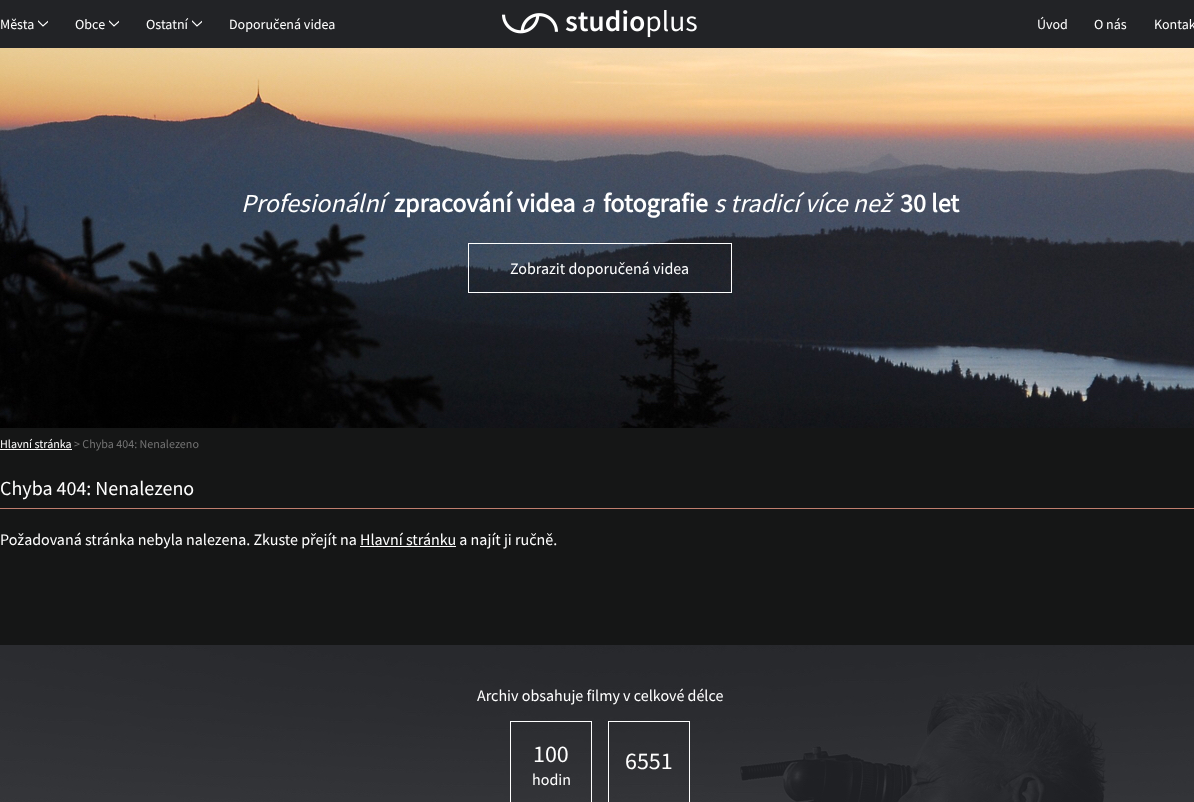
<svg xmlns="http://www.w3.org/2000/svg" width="1194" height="802">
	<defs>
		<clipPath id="clip1"><rect x="38" y="20" width="10" height="8" /></clipPath>
		<clipPath id="clip2"><rect x="109" y="20" width="10" height="8" /></clipPath>
		<clipPath id="clip3"><rect x="192" y="20" width="10" height="8" /></clipPath>
	</defs>
	<rect width="100%" height="100%" fill="#151616" />
	<rect x="0" y="0" width="1194" height="48" fill="#222326" />
	<g clip-path="url(#clip1)">
		<path d="M38 21L43 26L48 21.5" fill="none" stroke="#FFFFFF" stroke-width="1.2" stroke-linecap="round" />
	</g>
	<text x="0" y="29" font-family="Source Sans Pro" font-size="14" fill="#FFFFFF">Města</text>
	<g clip-path="url(#clip2)">
		<path d="M109 21L114 26L119 21.5" fill="none" stroke="#FFFFFF" stroke-width="1.2" stroke-linecap="round" />
	</g>
	<text x="75" y="29" font-family="Source Sans Pro" font-size="14" fill="#FFFFFF">Obce</text>
	<g clip-path="url(#clip3)">
		<path d="M192 21L197 26L202 21.5" fill="none" stroke="#FFFFFF" stroke-width="1.2" stroke-linecap="round" />
	</g>
	<g font-family="Source Sans Pro" font-size="14" fill="#FFFFFF">
		<text x="146" y="29">Ostatní</text>
		<text x="229" y="29">Doporučená videa</text>
	</g>
	<image x="502" y="10" width="195" height="28" href="assets/img1.png" />
	<g font-family="Source Sans Pro" font-size="14" fill="#FFFFFF">
		<text x="1037" y="29">Úvod</text>
		<text x="1094" y="29">O nás</text>
		<text x="1154" y="29">Kontak</text>
	</g>
	<image x="0" y="48" width="1194" height="380" href="assets/img2.png" />
	<text x="241" y="212" font-family="Source Sans Pro" font-size="26" font-style="italic" fill="#FFFFFF">Profesionální</text>
	<text x="394" y="212" font-family="Source Sans Pro" font-size="26" font-weight="700" fill="#FFFFFF">zpracování videa</text>
	<text x="581" y="212" font-family="Source Sans Pro" font-size="26" font-style="italic" fill="#FFFFFF">a</text>
	<text x="603" y="212" font-family="Source Sans Pro" font-size="26" font-weight="700" fill="#FFFFFF">fotografie</text>
	<text x="714" y="212" font-family="Source Sans Pro" font-size="26" font-style="italic" fill="#FFFFFF">s tradicí více než</text>
	<text x="900" y="212" font-family="Source Sans Pro" font-size="26" font-weight="700" fill="#FFFFFF">30 let</text>
	<rect x="468.5" y="243.5" width="263" height="49" fill="none" stroke="#FFFFFF" />
	<text x="510" y="274" font-family="Source Sans Pro" font-size="16" fill="#FFFFFF">Zobrazit doporučená videa</text>
	<text x="0" y="448" font-family="Source Sans Pro" font-size="12" fill="#FFFFFF">Hlavní stránka</text>
	<rect x="0" y="449" width="72" height="1" fill="#FFFFFF" />
	<text x="74" y="448" font-family="Source Sans Pro" font-size="12" fill="#737373">&gt; Chyba 404: Nenalezeno</text>
	<text x="0" y="495" font-family="Source Sans Pro" font-size="20" fill="#FFFFFF">Chyba 404: Nenalezeno</text>
	<rect x="0" y="508" width="1194" height="1" fill="#BF7E6E" />
	<text x="0" y="545" font-family="Source Sans Pro" font-size="16" fill="#FFFFFF">Požadovaná stránka nebyla nalezena. Zkuste přejít na Hlavní stránku a najít ji ručně.</text>
	<rect x="360" y="546" width="96" height="1" fill="#FFFFFF" />
	<image x="0" y="645" width="1194" height="157" href="assets/img3.png" />
	<text x="477" y="701" font-family="Source Sans Pro" font-size="16" fill="#FFFFFF">Archiv obsahuje filmy v celkové délce</text>
	<rect x="510.5" y="721.5" width="81" height="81" fill="none" stroke="#FFFFFF" />
	<text x="533" y="762" font-family="Source Sans Pro" font-size="24" fill="#FFFFFF">100</text>
	<text x="532" y="785" font-family="Source Sans Pro" font-size="16" fill="#FFFFFF">hodin</text>
	<rect x="608.5" y="721.5" width="81" height="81" fill="none" stroke="#FFFFFF" />
	<text x="625" y="769" font-family="Source Sans Pro" font-size="24" fill="#FFFFFF">6551</text>
</svg>
